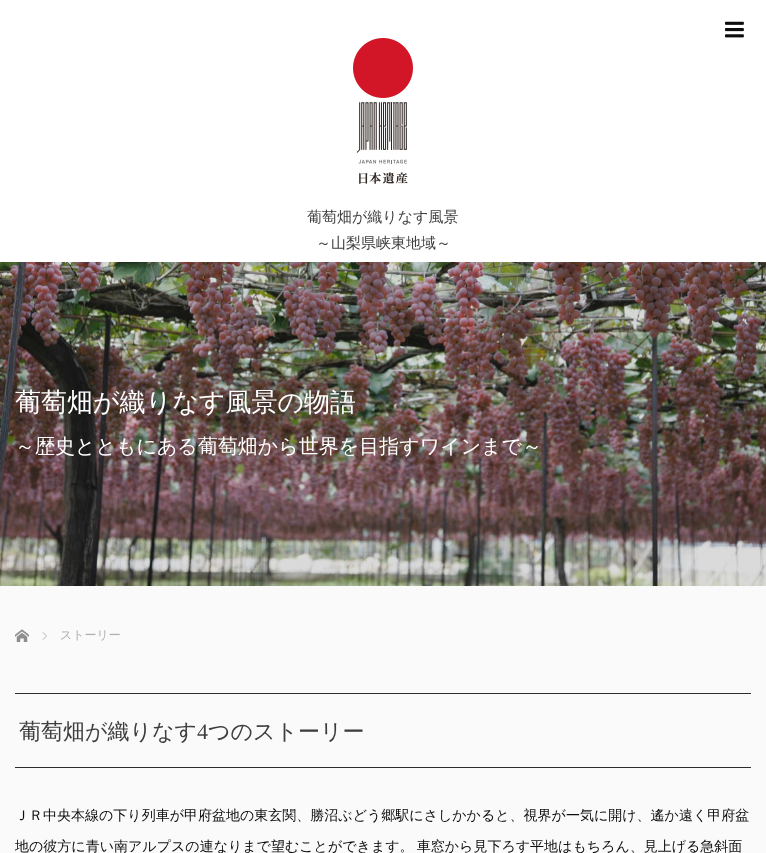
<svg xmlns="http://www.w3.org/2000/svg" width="766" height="853">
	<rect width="100%" height="100%" fill="#FFFFFF" />
	<image x="725" y="21" width="19" height="17" href="assets/img1.png" />
	<image x="353" y="38" width="60" height="146" href="assets/img2.png" />
	<g font-family="WenQuanYi Zen Hei" font-size="15" font-weight="500" fill="#3D3D3D">
		<text x="307" y="222">葡萄畑が織りなす風景</text>
		<text x="316" y="248">～山梨県峡東地域～</text>
	</g>
	<rect x="0" y="586" width="766" height="267" fill="#FAFAFA" />
	<image x="0" y="262" width="766" height="324" href="assets/img3.png" />
	<text x="15" y="411" font-family="WenQuanYi Zen Hei" font-size="26" font-weight="500" fill="#FFFFFF">葡萄畑が織りなす風景の物語</text>
	<text x="15" y="453" font-family="WenQuanYi Zen Hei" font-size="20" font-weight="500" fill="#FFFFFF">～歴史とともにある葡萄畑から世界を目指すワインまで～</text>
	<image x="15" y="629" width="14" height="13" href="assets/img4.png" />
	<image x="42" y="632" width="5" height="8" href="assets/img5.png" />
	<text x="60" y="639" font-family="WenQuanYi Zen Hei" font-size="12" font-weight="500" fill="#AEAEAE">ストーリー</text>
	<rect x="15" y="693" width="736" height="1" fill="#2D2D2D" />
	<rect x="15" y="767" width="736" height="1" fill="#2D2D2D" />
	<text x="19" y="739" font-family="WenQuanYi Zen Hei" font-size="22" font-weight="500" fill="#3D3D3D">葡萄畑が織りなす</text>
	<text x="197" y="739" font-family="Liberation Serif" font-size="22" fill="#3D3D3D">4</text>
	<text x="208" y="739" font-family="WenQuanYi Zen Hei" font-size="22" font-weight="500" fill="#3D3D3D">つのストーリー</text>
	<g font-family="WenQuanYi Zen Hei" font-size="14" font-weight="500" fill="#0D0D0D">
		<text x="15" y="820">ＪＲ中央本線の下り列車が甲府盆地の東玄関、勝沼ぶどう郷駅にさしかかると、視界が一気に開け、遙か遠く甲府盆</text>
		<text x="15" y="851" word-spacing="-1">地の彼⽅に⻘い南アルプスの連なりまで望むことができます。 車窓から見下ろす平地はもちろん、見上げる急斜面</text>
	</g>
</svg>
